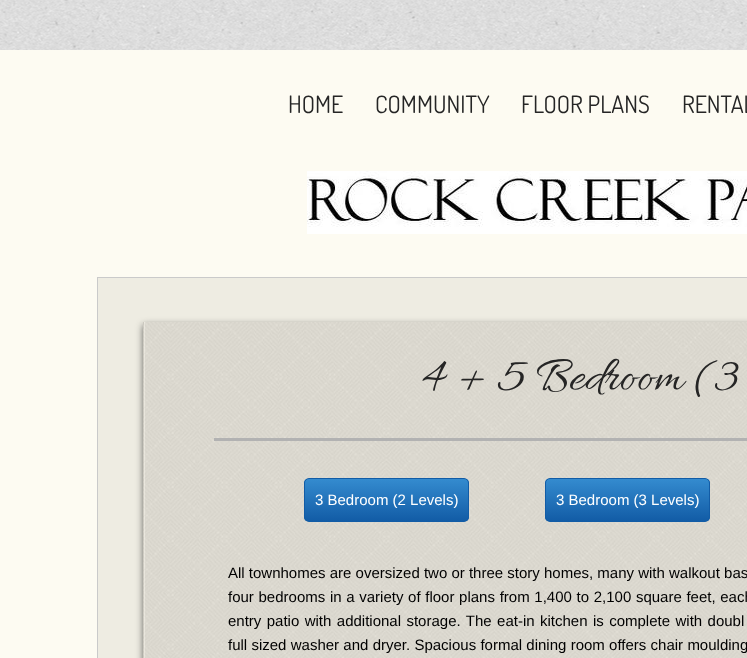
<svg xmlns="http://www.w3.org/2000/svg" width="747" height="658">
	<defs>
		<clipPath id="clip1"><rect x="304" y="478" width="165" height="44" rx="5" /></clipPath>
		<linearGradient id="g1" gradientUnits="userSpaceOnUse" x1="387" y1="479" x2="387" y2="521"><stop offset="0" stop-color="#348BCF" /><stop offset="1" stop-color="#125CA6" /></linearGradient>
		<clipPath id="clip2"><rect x="545" y="478" width="165" height="44" rx="5" /></clipPath>
		<linearGradient id="g2" gradientUnits="userSpaceOnUse" x1="628" y1="479" x2="628" y2="521"><stop offset="0" stop-color="#348BCF" /><stop offset="1" stop-color="#125CA6" /></linearGradient>
	</defs>
	<rect width="100%" height="100%" fill="#FFFFFF" />
	<image x="0" y="0" width="747" height="50" href="assets/img1.png" />
	<rect x="0" y="50" width="747" height="608" fill="#FDFBF2" />
	<g font-family="Dosis" font-size="24" fill="#252525">
		<text x="288" y="113">HOME</text>
		<text x="375" y="113">COMMUNITY</text>
		<text x="521" y="113">FLOOR PLANS</text>
		<text x="682" y="113">RENTAL</text>
	</g>
	<image x="307" y="171" width="440" height="63" href="assets/img2.png" />
	<rect x="97.5" y="277.5" width="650" height="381" fill="#EEECE2" stroke="#CACACA" />
	<rect x="143" y="325" width="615" height="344" fill="#323232" fill-opacity="0.75" filter="blur(3.5px)" />
	<image x="143" y="322" width="604" height="336" href="assets/img3.png" />
	<text x="422" y="389" font-family="Allura" font-size="50" fill="#252525">4 + 5 Bedroom (3</text>
	<rect x="214" y="438" width="533" height="3" fill="#B2B2B2" />
	<g clip-path="url(#clip1)">
		<rect x="304" y="479" width="165" height="42" fill="url(#g1)" />
	</g>
	<rect x="304.5" y="478.5" width="164" height="43" rx="4.5" fill="none" stroke="#125CA6" />
	<text x="315" y="505" font-family="Liberation Sans" font-size="15" fill="#FFFFFF">3 Bedroom (2 Levels)</text>
	<g clip-path="url(#clip2)">
		<rect x="545" y="479" width="165" height="42" fill="url(#g2)" />
	</g>
	<rect x="545.5" y="478.5" width="164" height="43" rx="4.5" fill="none" stroke="#125CA6" />
	<text x="556" y="505" font-family="Liberation Sans" font-size="15" fill="#FFFFFF">3 Bedroom (3 Levels)</text>
	<g font-family="Liberation Sans" font-size="15" fill="#000000">
		<text x="228" y="578">All townhomes are oversized two or three story homes, many with walkout bas</text>
		<text x="228" y="602" word-spacing="0.5">four bedrooms in a variety of floor plans from 1,400 to 2,100 square feet, each</text>
		<text x="228" y="626" word-spacing="1.25">entry patio with additional storage. The eat-in kitchen is complete with doubl</text>
		<text x="228" y="650" word-spacing="0.1">full sized washer and dryer. Spacious formal dining room offers chair moulding</text>
	</g>
</svg>
